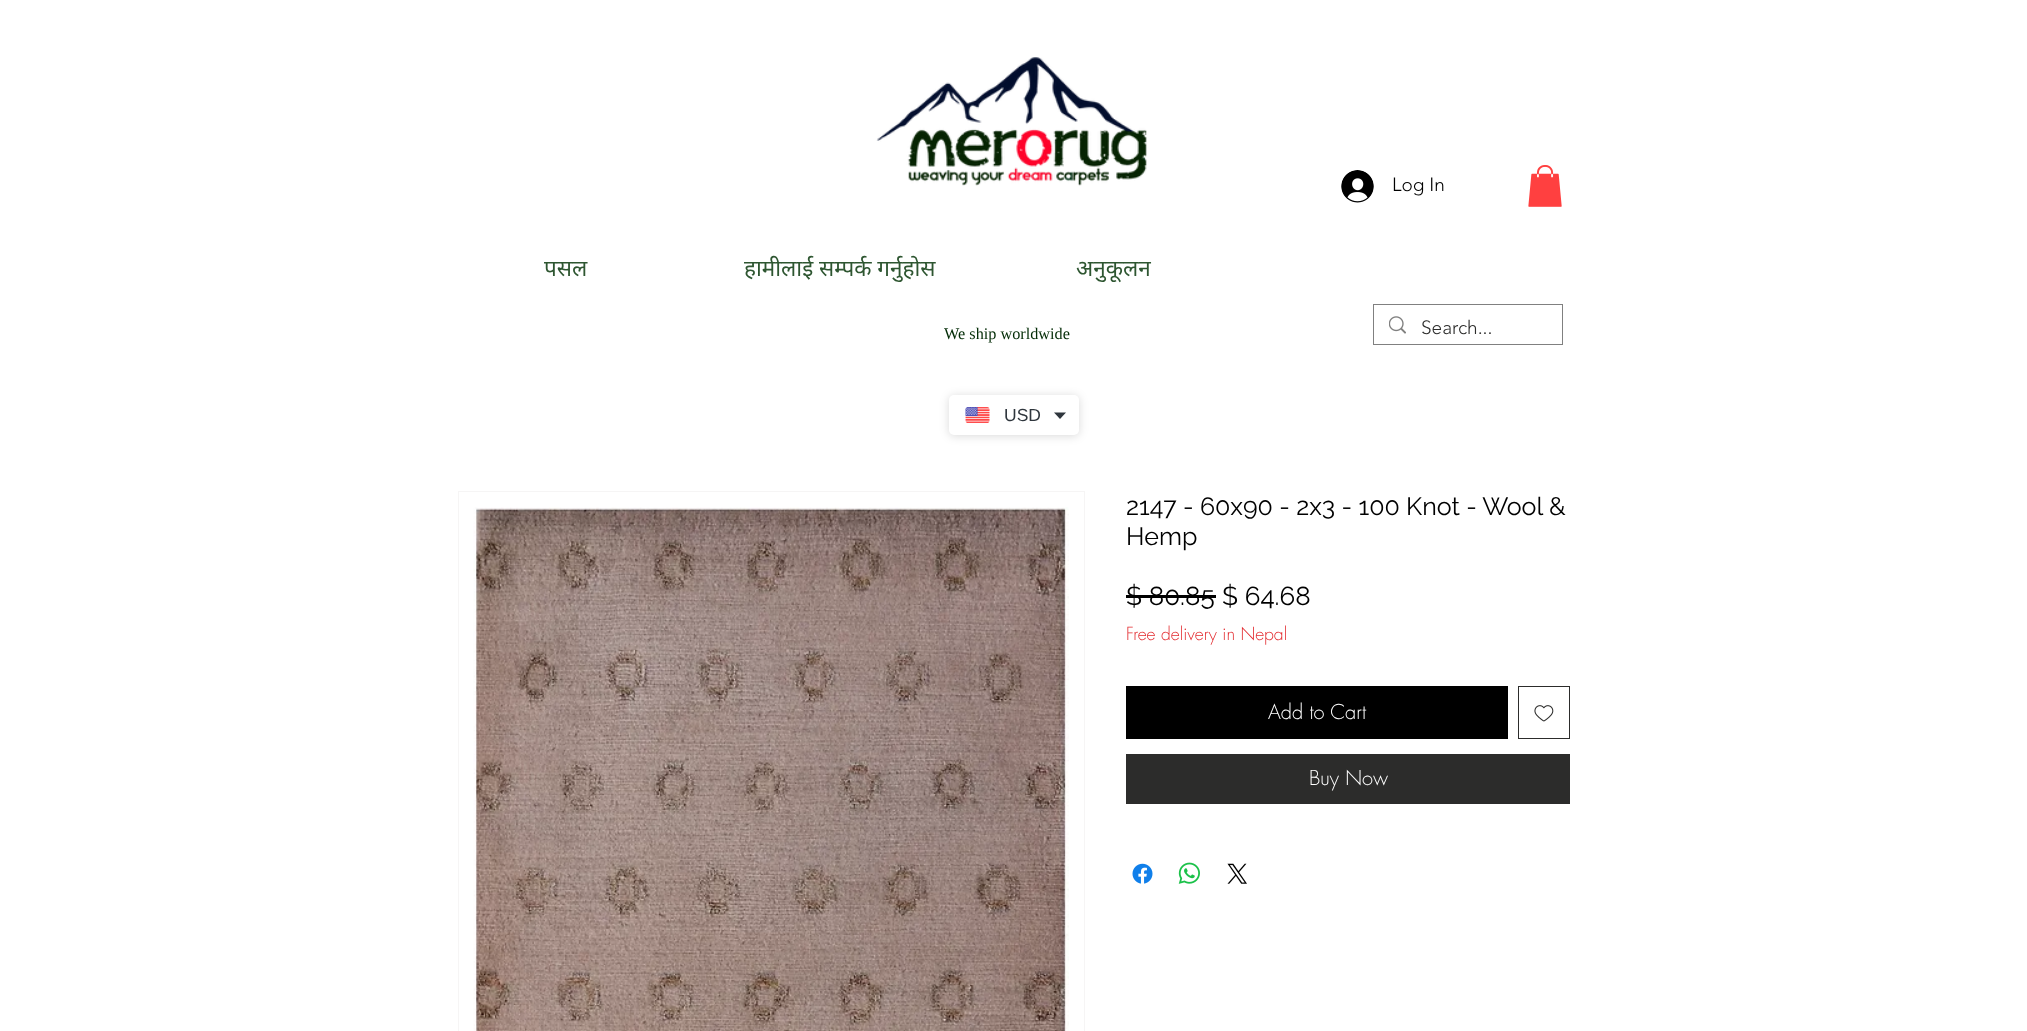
<svg xmlns="http://www.w3.org/2000/svg" width="2027" height="1031">
	<rect width="100%" height="100%" fill="#FFFFFF" />
	<image x="876" y="57" width="271" height="129" href="assets/img1.png" />
	<image x="1341" y="170" width="33" height="33" href="assets/img2.png" />
	<text x="1392" y="191" font-family="'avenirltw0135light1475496'" font-size="19" font-weight="300" fill="#000000">Log In</text>
	<image x="1528" y="165" width="34" height="42" href="assets/img3.png" />
	<g font-family="Noto Sans" font-size="22.5" fill="#2E5631">
		<text x="544" y="276">पसल</text>
		<text x="744" y="276">हामीलाई सम्पर्क गर्नुहोस</text>
		<text x="1076" y="276">अनुकूलन</text>
	</g>
	<text x="944" y="339" font-family="Liberation Serif" font-size="16.25" fill="#032C06">We ship worldwide</text>
	<rect x="1373.5" y="304.5" width="189" height="40" fill="none" stroke="#808080" />
	<image x="1389" y="316" width="17" height="18" href="assets/img4.png" />
	<text x="1421" y="334" font-family="'avenirltw0135light1475496'" font-size="19" font-weight="300" fill="#2C2C2B">Search...</text>
	<rect x="949" y="396" width="130" height="40" rx="5" fill="#000000" fill-opacity="0.15" filter="blur(5px)" />
	<rect x="949" y="395" width="130" height="40" rx="5" fill="#FFFFFF" />
	<image x="965" y="407" width="25" height="16" href="assets/img5.png" />
	<text x="1004" y="421" font-family="Liberation Sans" font-size="17.5" fill="#2F363D">USD</text>
	<path d="M1054 412.5H1066L1060 419Z" fill="#2F363D" />
	<rect x="458.5" y="491.5" width="626" height="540" fill="none" stroke="#F6F5F5" />
	<image x="473" y="507" width="596" height="524" href="assets/img6.png" />
	<g font-family="Raleway" font-size="25" fill="#000000">
		<text x="1126" y="515">2147 - 60x90 - 2x3 - 100 Knot - Wool &amp;</text>
		<text x="1126" y="545">Hemp</text>
	</g>
	<text x="1126" y="605" font-family="Raleway" font-size="26" fill="#000000">$ 80.85</text>
	<rect x="1126" y="595" width="90" height="3" fill="#000000" />
	<text x="1222" y="605" font-family="Raleway" font-size="26" fill="#000000">$ 64.68</text>
	<text x="1126" y="640" font-family="futura" font-size="17.5" font-weight="300" fill="#E32C30">Free delivery in Nepal</text>
	<rect x="1126" y="686" width="382" height="53" fill="#000000" />
	<text x="1268" y="719" font-family="futura" font-size="20" font-weight="300" fill="#FFFFFF">Add to Cart</text>
	<rect x="1518.5" y="686.5" width="51" height="52" fill="none" stroke="#2C2C2B" />
	<image x="1534" y="705" width="20" height="17" href="assets/img7.png" />
	<rect x="1126" y="754" width="444" height="50" fill="#2C2C2B" />
	<text x="1309" y="785" font-family="futura" font-size="20" font-weight="300" fill="#FFFFFF">Buy Now</text>
	<image x="1132" y="863" width="21" height="21" href="assets/img8.png" />
	<image x="1178" y="862" width="22" height="22" href="assets/img9.png" />
	<image x="1227" y="863" width="20" height="21" href="assets/img10.png" />
</svg>
